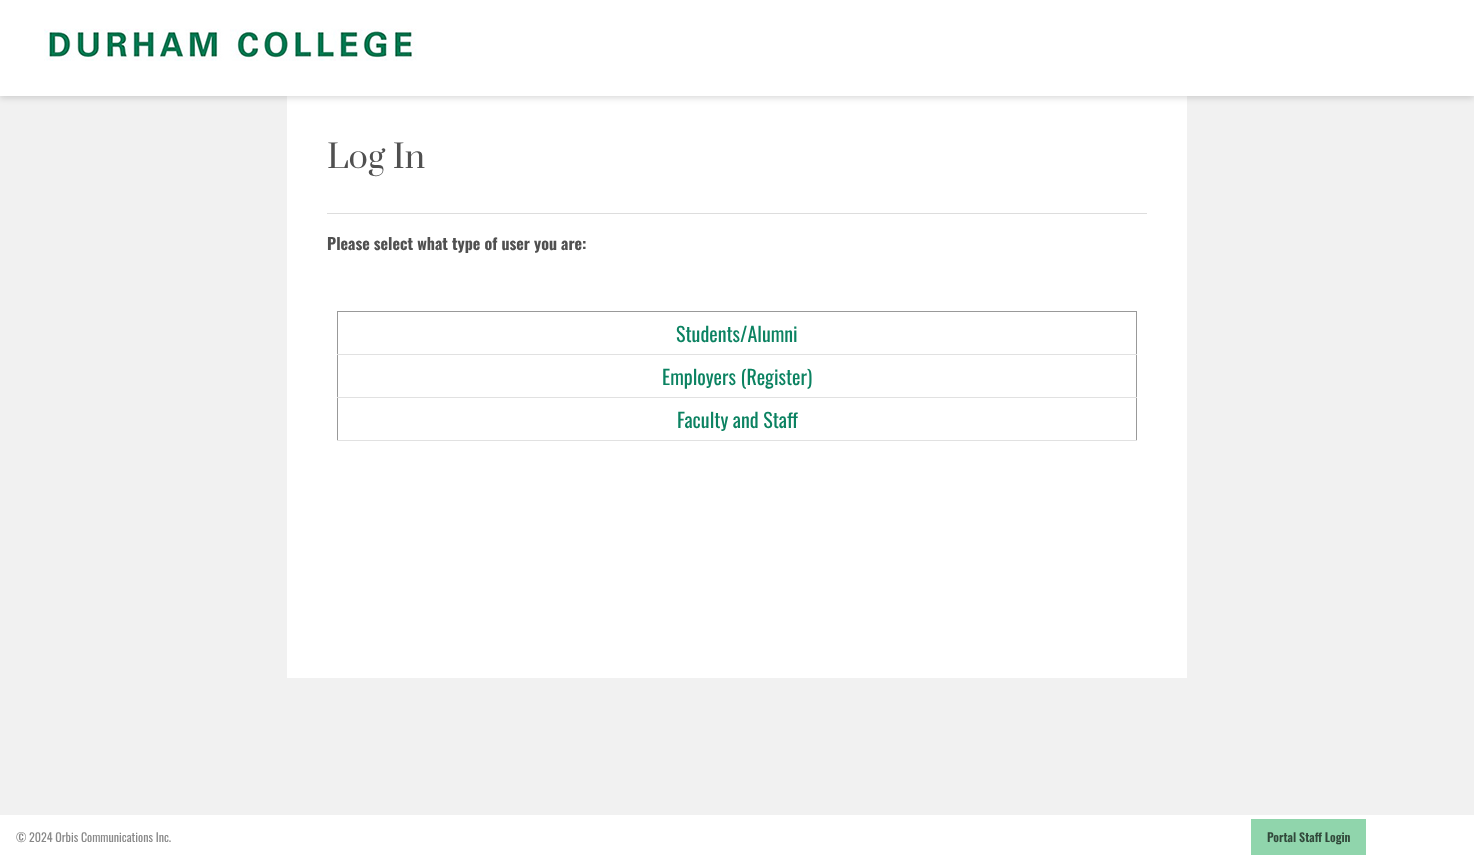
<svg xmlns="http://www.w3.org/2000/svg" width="1474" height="859">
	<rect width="100%" height="100%" fill="#F1F1F1" />
	<rect x="287" y="96" width="900" height="582" fill="#FFFFFF" />
	<rect x="0" y="2" width="1474" height="96" fill="#000000" fill-opacity="0.15" filter="blur(3px)" />
	<rect x="0" y="0" width="1474" height="96" fill="#FFFFFF" />
	<image x="44" y="28" width="373" height="33" href="assets/img1.png" />
	<text x="327" y="168" font-family="Prata" font-size="32" fill="#505050">Log In</text>
	<rect x="327" y="213" width="820" height="1" fill="#DDDDDD" />
	<text x="327" y="250" font-family="Oswald" font-size="16" font-weight="700" fill="#505050">Please select what type of user you are:</text>
	<rect x="337" y="311" width="800" height="1" fill="#999999" />
	<rect x="1136" y="311" width="1" height="130" fill="#999999" />
	<rect x="337" y="311" width="1" height="130" fill="#999999" />
	<rect x="337" y="354" width="800" height="1" fill="#E1E1E1" />
	<text x="676" y="342" font-family="Oswald" font-size="20" fill="#0B8261">Students/Alumni</text>
	<rect x="337" y="397" width="800" height="1" fill="#E1E1E1" />
	<g font-family="Oswald" font-size="20" fill="#0B8261">
		<text x="662" y="385">Employers (Register)</text>
		<text x="677" y="428">Faculty and Staff</text>
	</g>
	<rect x="337" y="440" width="800" height="1" fill="#E1E1E1" />
	<rect x="0" y="815" width="1474" height="44" fill="#FFFFFF" />
	<text x="16" y="842" font-family="Oswald" font-size="12" fill="#888888">© 2024 Orbis Communications Inc.</text>
	<rect x="1251" y="819" width="115" height="36" fill="#90D5AC" />
	<text x="1267" y="842" font-family="Oswald" font-size="12" font-weight="600" fill="#31483A">Portal Staff Login</text>
</svg>
